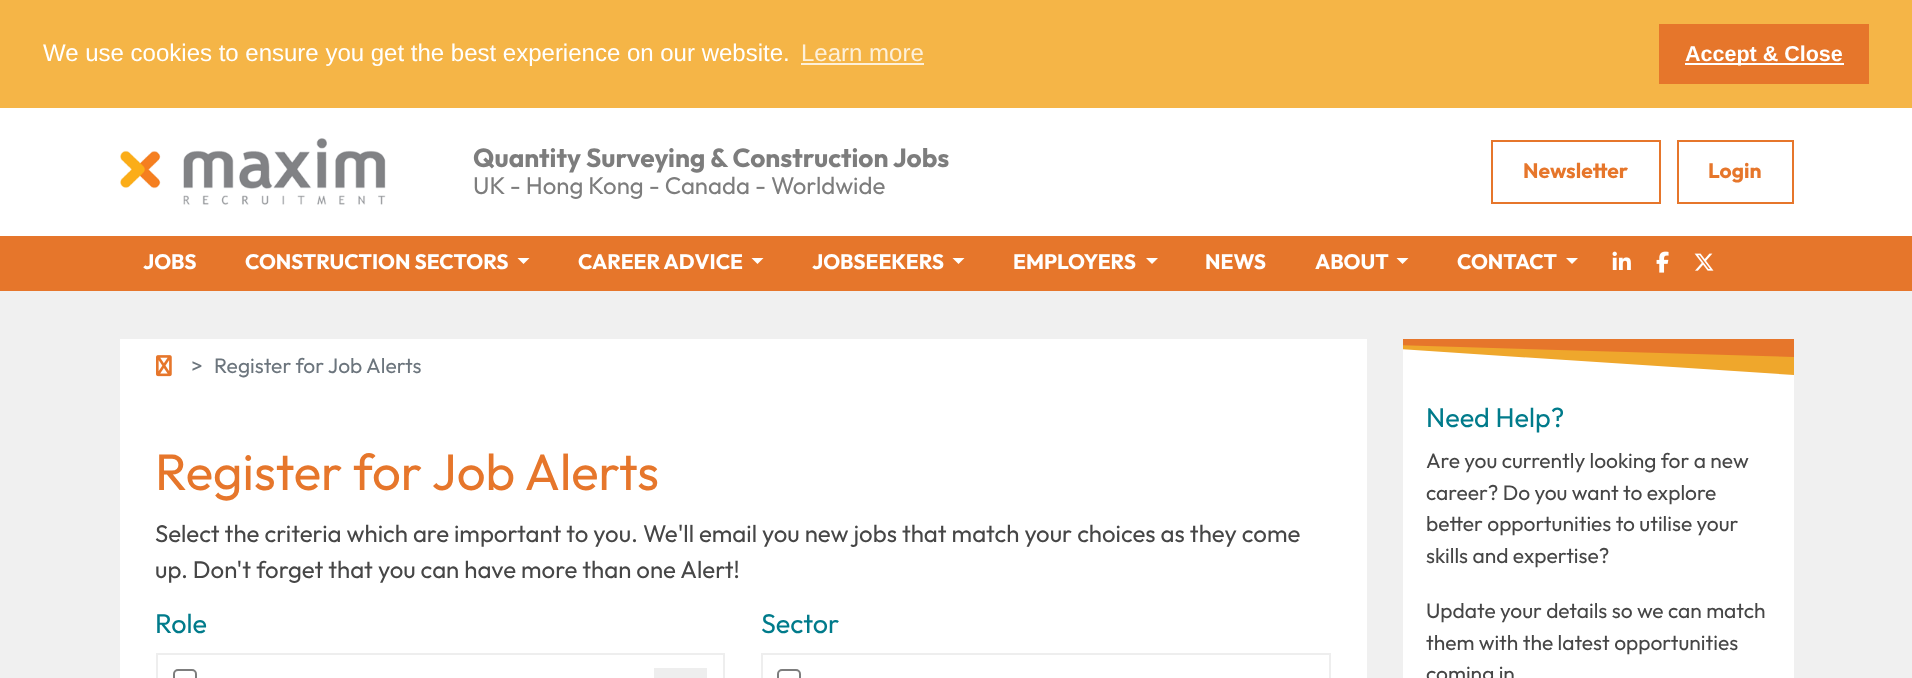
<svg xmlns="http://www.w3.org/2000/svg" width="1912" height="678">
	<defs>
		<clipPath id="clip1"><rect x="1403" y="342" width="391" height="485" /></clipPath>
	</defs>
	<rect width="100%" height="100%" fill="#FFFFFF" />
	<rect x="0" y="0" width="1912" height="108" fill="#F5B547" />
	<text x="43" y="61" font-family="Liberation Sans" font-size="24" fill="#FFFFFF">We use cookies to ensure you get the best experience on our website.</text>
	<text x="801" y="61" font-family="Liberation Sans" font-size="24" fill="#FDF0DA">Learn more</text>
	<rect x="801" y="63" width="123" height="2" fill="#FDF0DA" />
	<rect x="1659" y="24" width="210" height="60" fill="#E6762B" />
	<rect x="1685" y="63" width="159" height="2" fill="#FFFFFF" />
	<text x="1685" y="61" font-family="Liberation Sans" font-size="21.5" font-weight="700" fill="#FFFFFF">Accept &amp; Close</text>
	<image x="120" y="138" width="266" height="67" href="assets/img1.png" />
	<text x="473" y="167" font-family="Outfit" font-size="26.25" font-weight="700" fill="#7D7D7D">Quantity Surveying &amp; Construction Jobs</text>
	<text x="473" y="194" font-family="Outfit" font-size="24" fill="#7D7D7D">UK - Hong Kong - Canada - Worldwide</text>
	<rect x="1492" y="141" width="168" height="62" fill="none" stroke="#E6762B" stroke-width="2" />
	<text x="1523" y="178" font-family="Outfit" font-size="21" font-weight="700" fill="#E6762B">Newsletter</text>
	<rect x="1678" y="141" width="115" height="62" fill="none" stroke="#E6762B" stroke-width="2" />
	<text x="1708" y="178" font-family="Outfit" font-size="21" font-weight="700" fill="#E6762B">Login</text>
	<rect x="0" y="236" width="1912" height="55" fill="#E6762B" />
	<g font-family="Outfit" font-size="21" font-weight="700" fill="#FFFFFF">
		<text x="143" y="269">JOBS</text>
		<text x="245" y="269">CONSTRUCTION SECTORS</text>
	</g>
	<path d="M517.5 258H529.5L523.5 264Z" fill="#FFFFFF" />
	<text x="578" y="269" font-family="Outfit" font-size="21" font-weight="700" fill="#FFFFFF">CAREER ADVICE</text>
	<path d="M751.5 258H763.5L757.5 264Z" fill="#FFFFFF" />
	<text x="812" y="269" font-family="Outfit" font-size="21" font-weight="700" fill="#FFFFFF">JOBSEEKERS</text>
	<path d="M952.5 258H964.5L958.5 264Z" fill="#FFFFFF" />
	<text x="1013" y="269" font-family="Outfit" font-size="21" font-weight="700" fill="#FFFFFF">EMPLOYERS</text>
	<path d="M1146 258H1158L1152 264Z" fill="#FFFFFF" />
	<g font-family="Outfit" font-size="21" font-weight="700" fill="#FFFFFF">
		<text x="1205" y="269">NEWS</text>
		<text x="1315" y="269">ABOUT</text>
	</g>
	<path d="M1396.5 258H1408.5L1402.5 264Z" fill="#FFFFFF" />
	<text x="1457" y="269" font-family="Outfit" font-size="21" font-weight="700" fill="#FFFFFF">CONTACT</text>
	<path d="M1566 258H1578L1572 264Z" fill="#FFFFFF" />
	<image x="1612" y="251" width="19" height="19" href="assets/img2.png" />
	<image x="1656" y="251" width="13" height="22" href="assets/img3.png" />
	<image x="1694" y="253" width="20" height="18" href="assets/img4.png" />
	<rect x="0" y="291" width="1912" height="387" fill="#F0F0F0" />
	<rect x="120" y="339" width="1247" height="339" fill="#FFFFFF" />
	<image x="156" y="355" width="16" height="22" href="assets/img5.png" />
	<g font-family="Outfit" font-size="21" fill="#6C757D">
		<text x="191" y="373">&gt;</text>
		<text x="214" y="373">Register for Job Alerts</text>
	</g>
	<text x="155" y="490" font-family="Outfit" font-size="51" fill="#E6762B">Register for Job Alerts</text>
	<g font-family="Outfit" font-size="24" fill="#464646">
		<text x="155" y="542">Select the criteria which are important to you. We'll email you new jobs that match your choices as they come</text>
		<text x="155" y="578">up. Don't forget that you can have more than one Alert!</text>
	</g>
	<text x="155" y="633" font-family="Outfit" font-size="27" fill="#007B8B">Role</text>
	<rect x="157" y="654" width="567" height="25" fill="none" stroke="#EEEEEE" stroke-width="2" />
	<rect x="174" y="670" width="22" height="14" rx="4" fill="none" stroke="#7D7D7D" stroke-width="2" />
	<rect x="654" y="668" width="53" height="10" fill="#EEEEEE" />
	<text x="761" y="633" font-family="Outfit" font-size="27" fill="#007B8B">Sector</text>
	<rect x="762" y="654" width="568" height="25" fill="none" stroke="#EEEEEE" stroke-width="2" />
	<rect x="778" y="670" width="22" height="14" rx="4" fill="none" stroke="#7D7D7D" stroke-width="2" />
	<rect x="1403" y="349" width="391" height="329" fill="#FFFFFF" />
	<rect x="1403" y="339" width="391" height="3" fill="#E6762B" />
	<g clip-path="url(#clip1)">
		<path d="M1292 342H1794V375Z" fill="#EFA72C" />
		<path d="M1292 342H1794V357Z" fill="#E6762B" />
	</g>
	<text x="1426" y="427" font-family="Outfit" font-size="27" fill="#007B8B">Need Help?</text>
	<g font-family="Outfit" font-size="21" fill="#464646">
		<text x="1426" y="468">Are you currently looking for a new</text>
		<text x="1426" y="500">career? Do you want to explore</text>
		<text x="1426" y="531">better opportunities to utilise your</text>
		<text x="1426" y="563">skills and expertise?</text>
		<text x="1426" y="618">Update your details so we can match</text>
		<text x="1426" y="650">them with the latest opportunities</text>
		<text x="1426" y="681">coming in</text>
	</g>
</svg>
